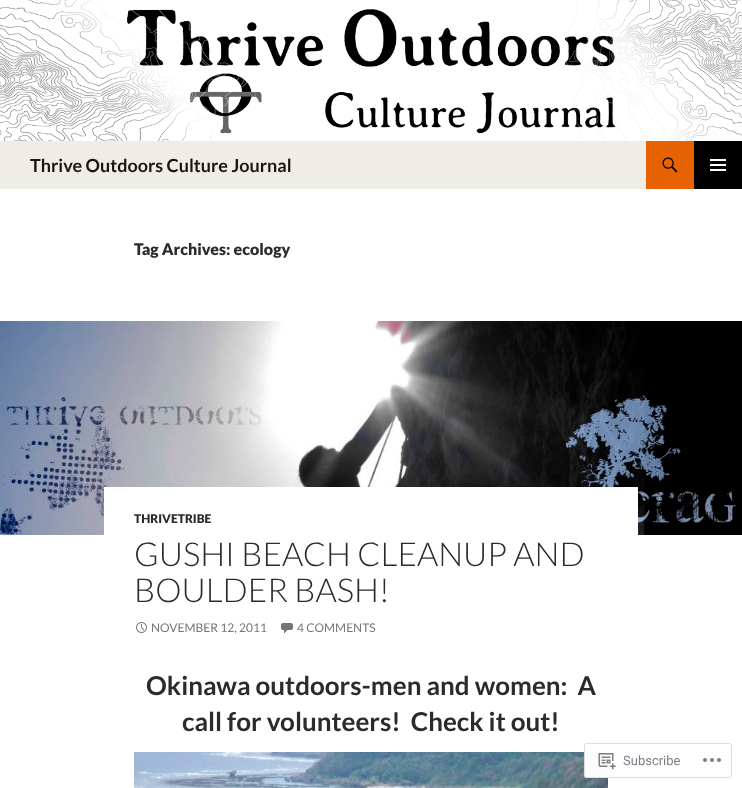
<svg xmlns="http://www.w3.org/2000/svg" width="742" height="788">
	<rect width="100%" height="100%" fill="#FFFFFF" />
	<image x="0" y="0" width="742" height="141" href="assets/img1.png" />
	<rect x="0" y="141" width="646" height="48" fill="#EEEEE6" />
	<text x="30" y="172" font-family="Lato" font-size="18" font-weight="700" fill="#181810">Thrive Outdoors Culture Journal</text>
	<rect x="646" y="141" width="48" height="48" fill="#E76203" />
	<image x="662" y="157" width="16" height="16" href="assets/img2.png" />
	<rect x="694" y="141" width="48" height="48" fill="#000000" />
	<image x="710" y="159" width="16" height="12" href="assets/img3.png" />
	<text x="134" y="255" font-family="Lato" font-size="16" font-weight="900" fill="#2B2B2B">Tag Archives: ecology</text>
	<image x="0" y="321" width="742" height="214" href="assets/img4.png" />
	<rect x="104" y="487" width="534" height="48" fill="#FFFFFF" />
	<text x="134" y="523" font-family="Lato" font-size="12" font-weight="900" fill="#2B2B2B">THRIVETRIBE</text>
	<g font-family="Lato" font-size="33" font-weight="300" fill="#2B2B2B">
		<text x="134" y="566">GUSHI BEACH CLEANUP AND</text>
		<text x="134" y="602">BOULDER BASH!</text>
	</g>
	<image x="136" y="622" width="11" height="11" href="assets/img5.png" />
	<text x="151" y="632" font-family="Lato" font-size="12" fill="#767676">NOVEMBER 12, 2011</text>
	<image x="281" y="623" width="12" height="11" href="assets/img6.png" />
	<text x="297" y="632" font-family="Lato" font-size="12" fill="#767676">4 COMMENTS</text>
	<g font-family="Lato" font-size="26" font-weight="700" fill="#2B2B2B">
		<text x="146" y="695" xml:space="preserve">Okinawa outdoors-men and women:  A</text>
		<text x="182" y="731" xml:space="preserve">call for volunteers!  Check it out!</text>
	</g>
	<image x="134" y="752" width="474" height="36" href="assets/img7.png" />
	<rect x="584" y="743" width="148" height="35" rx="3" fill="#FFFFFF" fill-opacity="0.98" />
	<rect x="584.5" y="743.5" width="147" height="34" rx="2.5" fill="none" stroke="#DCDCDE" stroke-opacity="0.98" />
	<image x="598" y="753" width="18" height="17" href="assets/img8.png" />
	<text x="623" y="765" font-family="Roboto" font-size="13" fill="#7B7F85">Subscribe</text>
	<image x="703" y="758" width="18" height="4" href="assets/img9.png" />
</svg>
